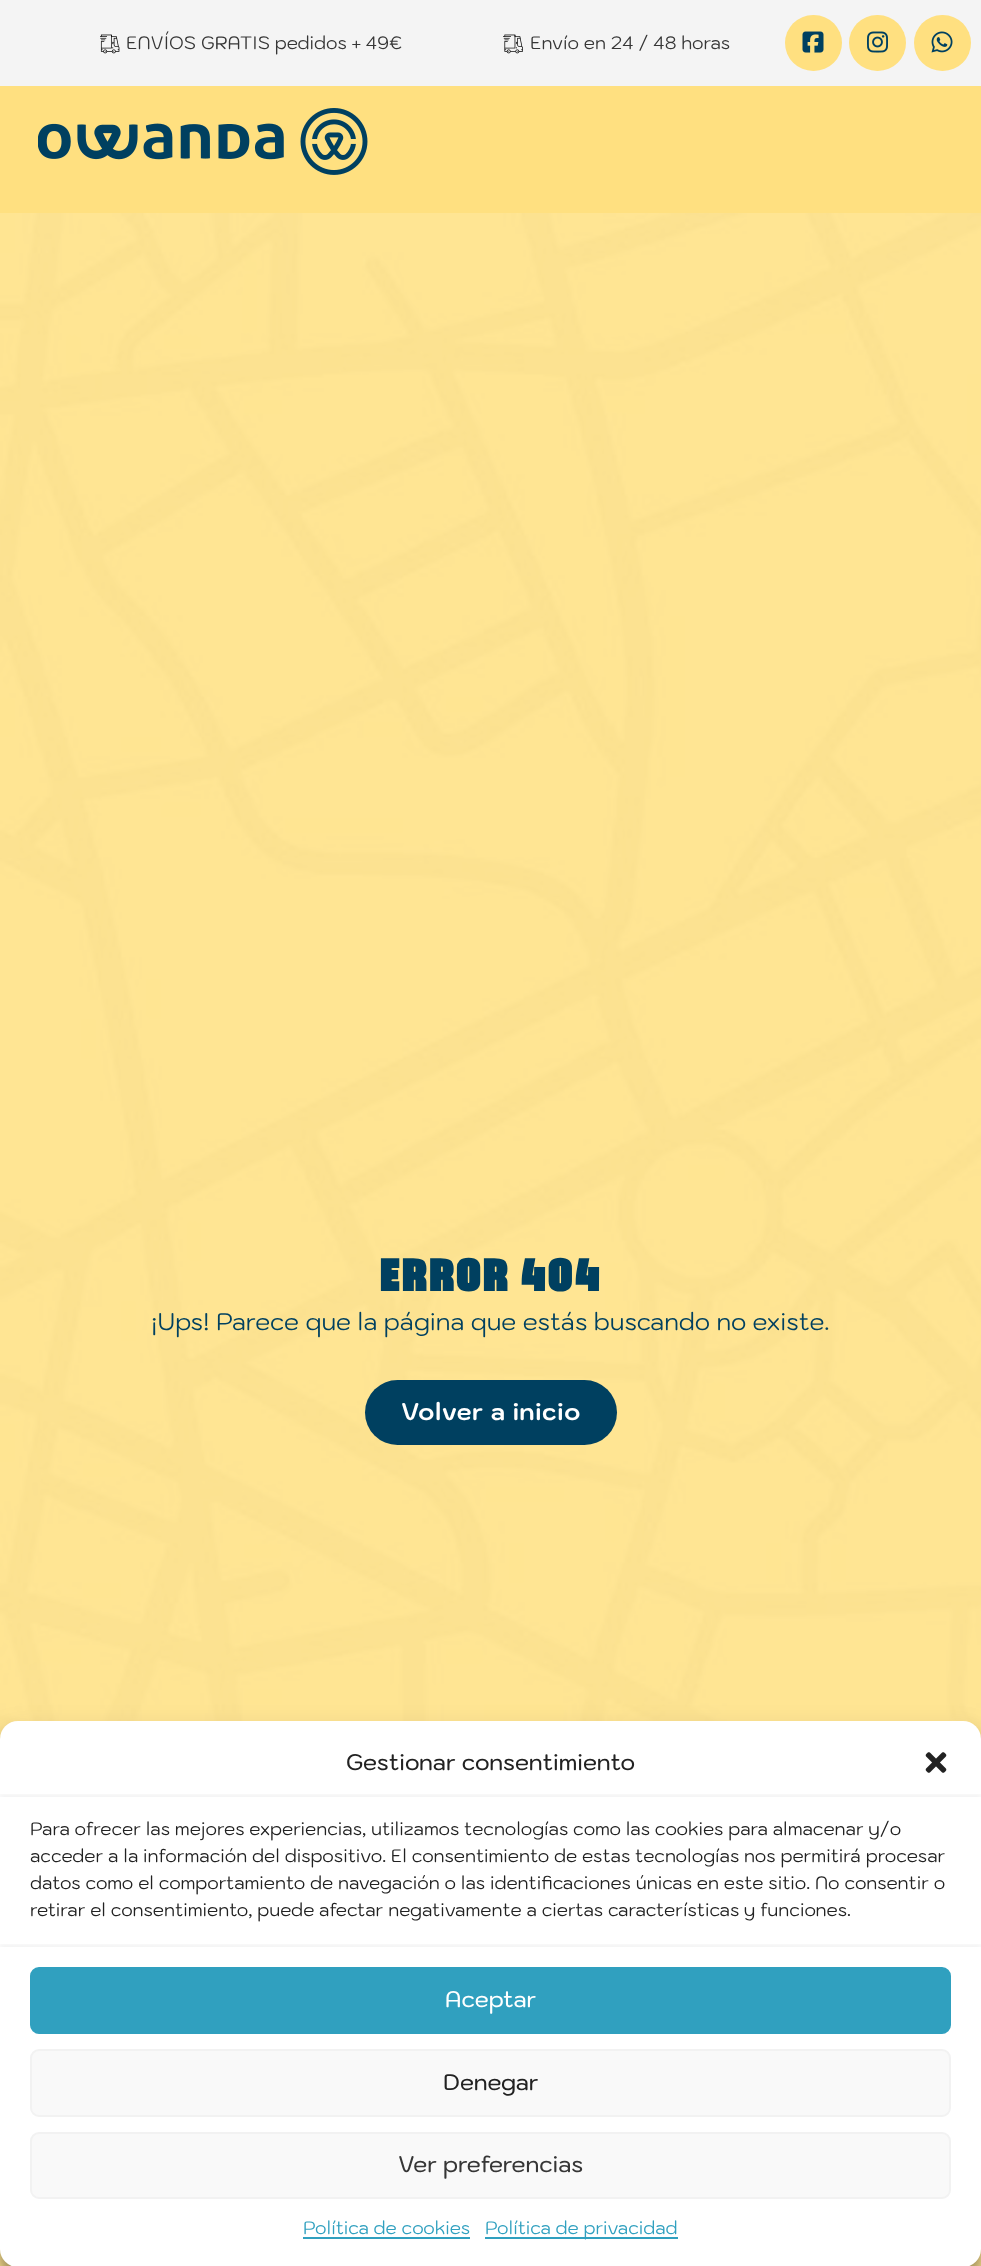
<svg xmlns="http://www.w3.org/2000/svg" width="981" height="2266">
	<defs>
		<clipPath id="clip1"><rect x="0" y="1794" width="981" height="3" /></clipPath>
		<clipPath id="clip2"><rect x="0" y="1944" width="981" height="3" /></clipPath>
	</defs>
	<rect width="100%" height="100%" fill="#F4F4F4" />
	<image x="100" y="34" width="20" height="20" href="assets/img1.png" />
	<text x="126" y="49" font-family="Kodchasan" font-size="18" fill="#363636">ENVÍOS GRATIS pedidos + 49€</text>
	<image x="503" y="34" width="20" height="20" href="assets/img2.png" />
	<text x="530" y="49" font-family="Kodchasan" font-size="18" fill="#363636">Envío en 24 / 48 horas</text>
	<rect x="785" y="15" width="57" height="56" rx="28" fill="#FFE080" />
	<image x="802" y="31" width="22" height="22" href="assets/img3.png" />
	<rect x="849" y="15" width="57" height="56" rx="28" fill="#FFE080" />
	<image x="867" y="31" width="21" height="22" href="assets/img4.png" />
	<rect x="914" y="15" width="57" height="56" rx="28" fill="#FFE080" />
	<image x="931" y="31" width="22" height="22" href="assets/img5.png" />
	<rect x="0" y="86" width="981" height="127" fill="#FFE080" />
	<image x="38" y="108" width="330" height="67" href="assets/img6.png" />
	<image x="0" y="213" width="981" height="2053" href="assets/img7.png" />
	<text x="380" y="1291" font-family="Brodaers" font-size="45" font-weight="700" letter-spacing="2.25" fill="#004060">ERROR 404</text>
	<text x="151" y="1330" font-family="Kodchasan" font-size="24" fill="#004060">¡Ups! Parece que la página que estás buscando no existe.</text>
	<rect x="365" y="1380" width="252" height="65" rx="32.5" fill="#004060" />
	<text x="401" y="1420" font-family="Kodchasan" font-size="24" font-weight="700" letter-spacing="0.75" fill="#FFFFFF">Volver a inicio</text>
	<rect x="0" y="1730" width="981" height="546" rx="18" fill="#000000" fill-opacity="0.23" filter="blur(4.5px)" />
	<rect x="0" y="1736" width="981" height="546" rx="18" fill="#000000" fill-opacity="0.19" filter="blur(15px)" />
	<rect x="0" y="1721" width="981" height="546" rx="18" fill="#FFFFFF" />
	<text x="346" y="1770" font-family="Kodchasan" font-size="22.5" font-weight="500" fill="#222222">Gestionar consentimiento</text>
	<image x="925" y="1752" width="22" height="21" href="assets/img8.png" />
	<g clip-path="url(#clip1)">
		<rect x="0" y="1794" width="981" height="5" fill="#000000" fill-opacity="0.05" filter="blur(2px)" />
	</g>
	<g font-family="Kodchasan" font-size="18" fill="#222222">
		<text x="30" y="1835">Para ofrecer las mejores experiencias, utilizamos tecnologías como las cookies para almacenar y/o</text>
		<text x="30" y="1862">acceder a la información del dispositivo. El consentimiento de estas tecnologías nos permitirá procesar</text>
		<text x="30" y="1889">datos como el comportamiento de navegación o las identificaciones únicas en este sitio. No consentir o</text>
		<text x="30" y="1916">retirar el consentimiento, puede afectar negativamente a ciertas características y funciones.</text>
	</g>
	<g clip-path="url(#clip2)">
		<rect x="0" y="1944" width="981" height="5" fill="#000000" fill-opacity="0.05" filter="blur(2px)" />
	</g>
	<rect x="31" y="1968" width="919" height="65" rx="8" fill="#30A0BF" stroke="#30A0BF" stroke-width="2" />
	<text x="445" y="2007" font-family="Kodchasan" font-size="22.5" font-weight="500" fill="#FFFFFF">Aceptar</text>
	<rect x="31" y="2050" width="919" height="66" rx="8" fill="#F9F9F9" stroke="#F2F2F2" stroke-width="2" />
	<text x="443" y="2090" font-family="Kodchasan" font-size="22.5" font-weight="500" fill="#222222">Denegar</text>
	<rect x="31" y="2133" width="919" height="65" rx="8" fill="#F9F9F9" stroke="#F2F2F2" stroke-width="2" />
	<text x="398" y="2172" font-family="Kodchasan" font-size="22.5" font-weight="500" fill="#363636">Ver preferencias</text>
	<text x="303" y="2234" font-family="Kodchasan" font-size="18" fill="#30A0BF">Política de cookies</text>
	<rect x="303" y="2237" width="167" height="2" fill="#30A0BF" />
	<rect x="485" y="2237" width="193" height="2" fill="#30A0BF" />
	<text x="485" y="2234" font-family="Kodchasan" font-size="18" fill="#30A0BF">Política de privacidad</text>
</svg>
